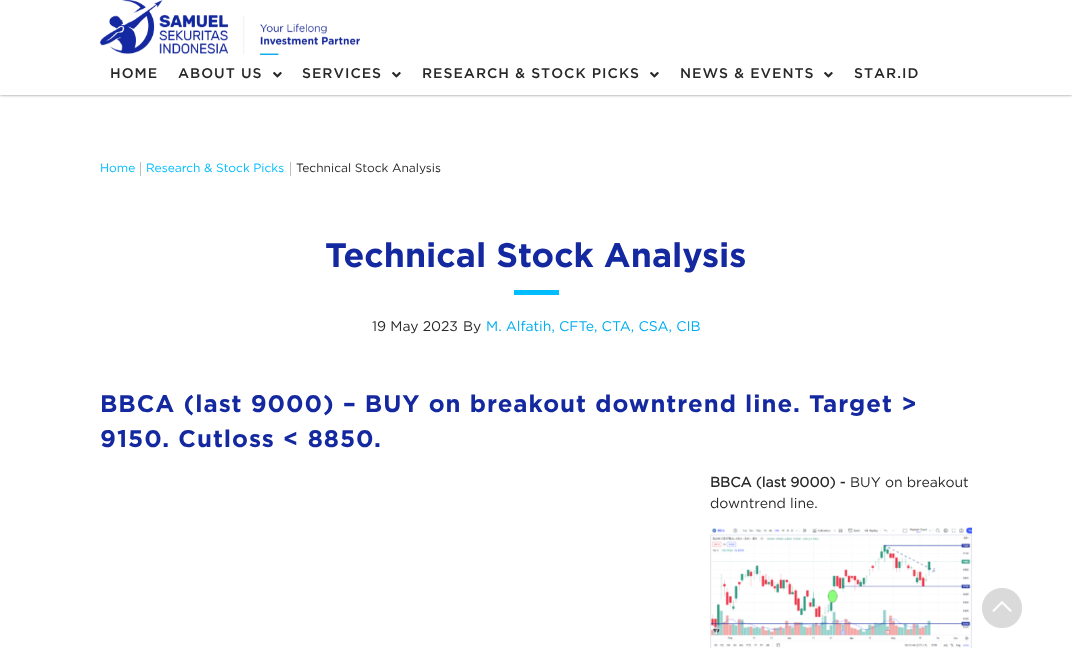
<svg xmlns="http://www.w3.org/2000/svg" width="1072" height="648">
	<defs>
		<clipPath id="clip1"><rect x="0" y="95" width="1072" height="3" /></clipPath>
	</defs>
	<rect width="100%" height="100%" fill="#FFFFFF" />
	<g clip-path="url(#clip1)">
		<rect x="0" y="0" width="1072" height="95" fill="#000000" fill-opacity="0.5" filter="blur(1.5px)" />
	</g>
	<image x="100" y="0" width="260" height="55" href="assets/img1.png" />
	<g font-family="Gotham" font-size="14" font-weight="500" letter-spacing="1" fill="#292829">
		<text x="110" y="78">HOME</text>
		<text x="178" y="78">ABOUT US</text>
	</g>
	<image x="273" y="72" width="9" height="6" href="assets/img2.png" />
	<text x="302" y="78" font-family="Gotham" font-size="14" font-weight="500" letter-spacing="1" fill="#292829">SERVICES</text>
	<image x="392" y="72" width="9" height="6" href="assets/img2.png" />
	<text x="422" y="78" font-family="Gotham" font-size="14" font-weight="500" letter-spacing="1" fill="#292829">RESEARCH &amp; STOCK PICKS</text>
	<image x="650" y="72" width="9" height="6" href="assets/img2.png" />
	<text x="680" y="78" font-family="Gotham" font-size="14" font-weight="500" letter-spacing="1" fill="#292829">NEWS &amp; EVENTS</text>
	<image x="824" y="72" width="9" height="6" href="assets/img2.png" />
	<text x="854" y="78" font-family="Gotham" font-size="14" font-weight="500" letter-spacing="1" fill="#292829">STAR.ID</text>
	<text x="100" y="172" font-family="Gotham" font-size="12" fill="#00BDFF">Home</text>
	<rect x="140" y="162" width="1" height="14" fill="#BBBDC0" />
	<text x="146" y="172" font-family="Gotham" font-size="12" fill="#00BDFF">Research &amp; Stock Picks</text>
	<rect x="290" y="162" width="1" height="14" fill="#BBBDC0" />
	<text x="296" y="172" font-family="Gotham" font-size="12" fill="#292829">Technical Stock Analysis</text>
	<text x="325" y="267" font-family="Gotham" font-size="34" font-weight="700" fill="#1428A0">Technical Stock Analysis</text>
	<rect x="514" y="290" width="45" height="5" fill="#00BDFF" />
	<g font-family="Gotham" font-size="14" fill="#292829">
		<text x="372" y="331">19 May 2023</text>
		<text x="463" y="331">By</text>
	</g>
	<text x="486" y="331" font-family="Gotham" font-size="14" fill="#00ADEF">M. Alfatih, CFTe, CTA, CSA, CIB</text>
	<g font-family="Gotham" font-size="24" font-weight="700" letter-spacing="1" fill="#1428A0">
		<text x="100" y="412">BBCA (last 9000) – BUY on breakout downtrend line. Target &gt;</text>
		<text x="100" y="447">9150. Cutloss &lt; 8850.</text>
	</g>
	<text x="710" y="487" font-family="'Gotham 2'" font-size="14" font-weight="700" fill="#292829">BBCA (last 9000) -</text>
	<g font-family="Gotham" font-size="14" fill="#292829">
		<text x="850" y="487">BUY on breakout</text>
		<text x="710" y="508">downtrend line.</text>
	</g>
	<image x="710" y="527" width="262" height="121" href="assets/img3.png" />
	<image x="982" y="588" width="40" height="40" href="assets/img4.png" />
</svg>
